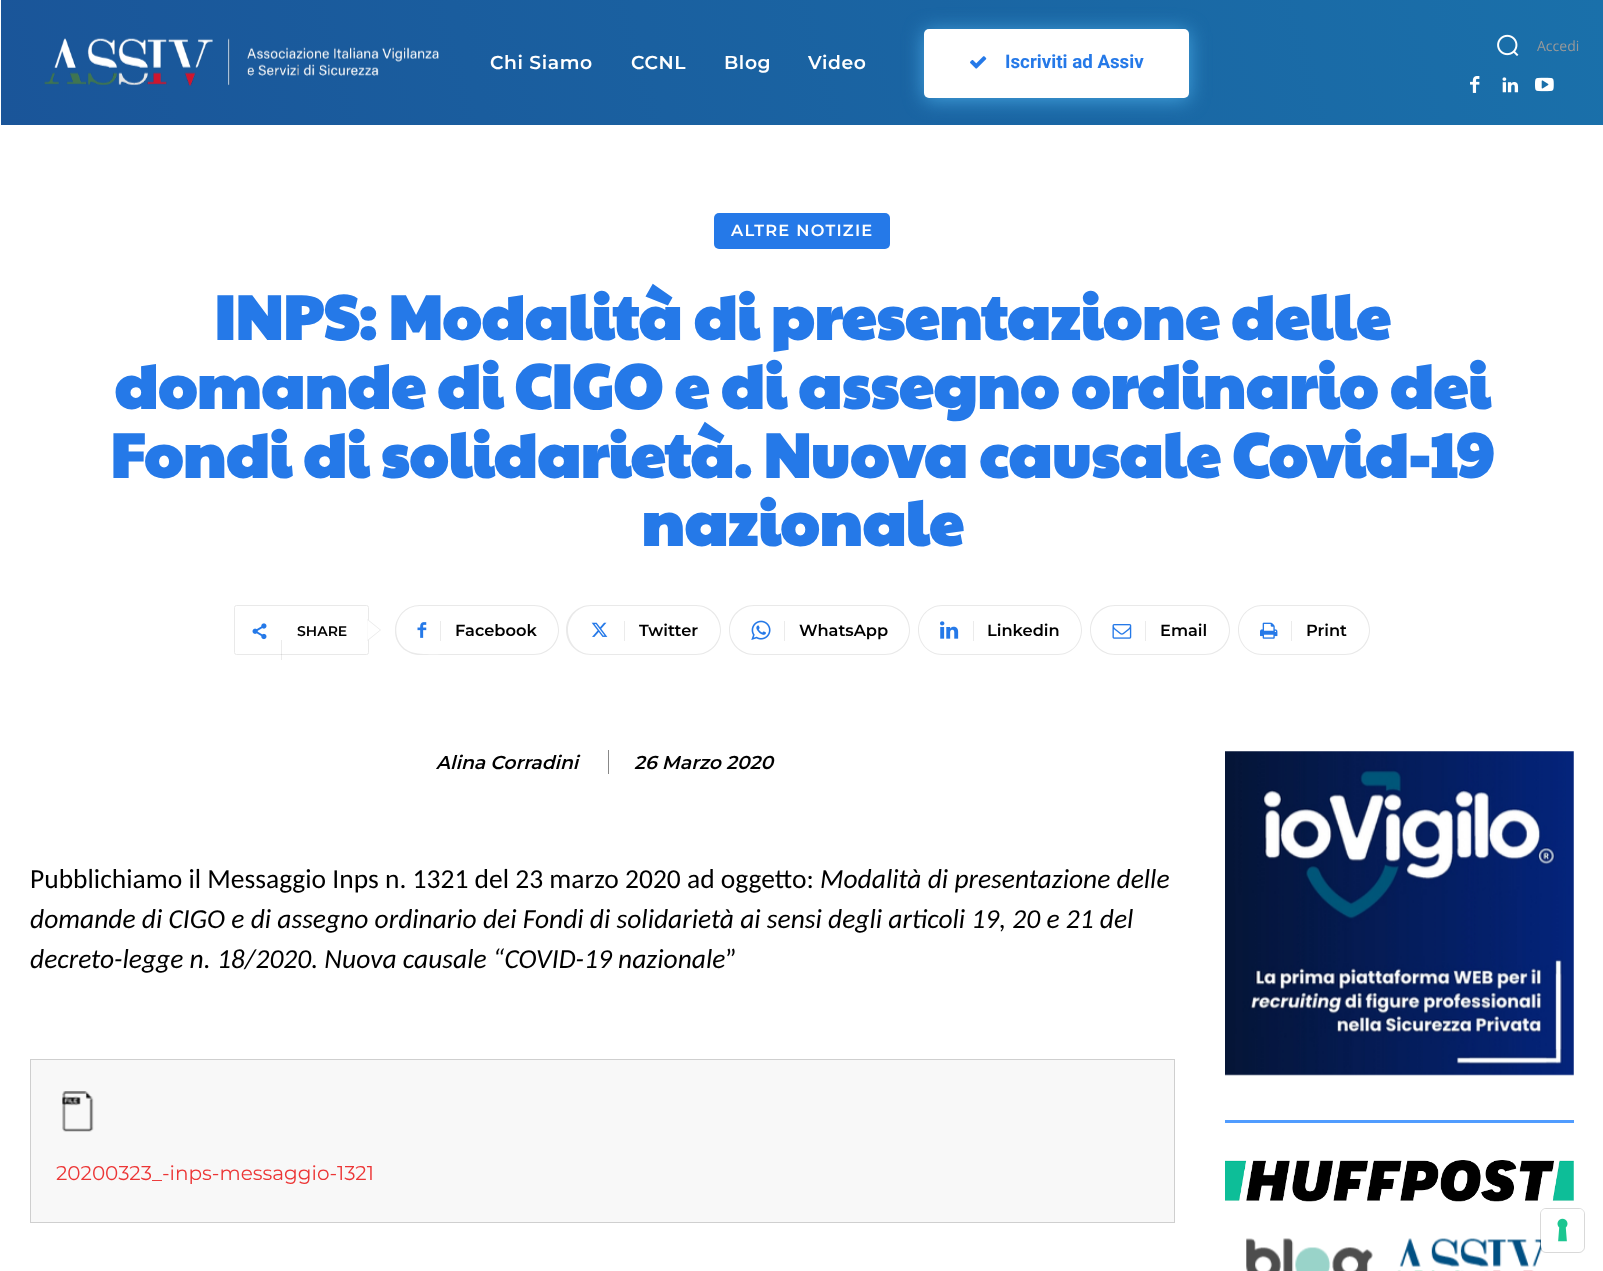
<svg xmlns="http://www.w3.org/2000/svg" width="1603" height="1271">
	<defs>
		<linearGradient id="g1" gradientUnits="userSpaceOnUse" x1="39" y1="267" x2="1566" y2="-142"><stop offset="0" stop-color="#1A5599" /><stop offset="1" stop-color="#1A70AA" /></linearGradient>
		<clipPath id="clip1"><rect x="395" y="605" width="164" height="50" /></clipPath>
	</defs>
	<rect width="100%" height="100%" fill="#FFFFFF" />
	<rect x="1" y="0" width="1602" height="125" fill="url(#g1)" />
	<image x="44" y="38" width="395" height="48" href="assets/img1.png" />
	<image x="1497" y="34" width="22" height="22" href="assets/img2.png" />
	<text x="1537" y="51" font-family="Open Sans" font-size="14" fill="#999999">Accedi</text>
	<image x="1470" y="76" width="10" height="17" href="assets/img3.png" />
	<image x="1502" y="77" width="17" height="16" href="assets/img4.png" />
	<image x="1535" y="77" width="19" height="15" href="assets/img5.png" />
	<g font-family="Montserrat" font-size="18.75" font-weight="600" letter-spacing="0.6" fill="#FFFFFF">
		<text x="490" y="69">Chi Siamo</text>
		<text x="631" y="69">CCNL</text>
		<text x="724" y="69">Blog</text>
		<text x="808" y="69">Video</text>
	</g>
	<rect x="924" y="31" width="265" height="69" rx="5" fill="#4DB2EC" fill-opacity="0.8" filter="blur(10px)" />
	<rect x="924" y="29" width="265" height="69" rx="5" fill="#FFFFFF" />
	<image x="970" y="56" width="17" height="13" href="assets/img6.png" />
	<text x="1005" y="68" font-family="Roboto" font-size="18.75" font-weight="700" fill="#2579E8">Iscriviti ad Assiv</text>
	<rect x="714" y="213" width="176" height="36" rx="5" fill="#2579E8" />
	<text x="731" y="236" font-family="Montserrat" font-size="16.25" font-weight="600" letter-spacing="1.25" fill="#FFFFFF">ALTRE NOTIZIE</text>
	<g font-family="Paytone One" font-size="62.5" font-weight="700" fill="#2579E8">
		<text x="214" y="340">INPS: Modalità di presentazione delle</text>
		<text x="114" y="409">domande di CIGO e di assegno ordinario dei</text>
		<text x="110" y="478">Fondi di solidarietà. Nuova causale Covid-19</text>
		<text x="641" y="546">nazionale</text>
	</g>
	<rect x="234.5" y="605.5" width="134" height="49" rx="2" fill="none" stroke="#E9E9E9" />
	<path d="M367.5 641V619L381 630Z" fill="#E9E9E9" />
	<image x="252" y="623" width="15" height="17" href="assets/img7.png" />
	<text x="297" y="636" font-family="Montserrat" font-size="14" font-weight="600" fill="#000000">SHARE</text>
	<rect x="281" y="640" width="1" height="20" fill="#000000" fill-opacity="0.08" />
	<path d="M367.5 640V620L380 630Z" fill="#FFFFFF" />
	<path d="M440 605H534C548 605 559 616 559 630C559 644 548 655 534 655H440ZM440 606H534C547 606 558 617 558 630C558 643 547 654 534 654H440Z" fill="#E9E9E9" fill-rule="evenodd" />
	<g clip-path="url(#clip1)">
		<path d="M420 605H448V655C438 655 419 657 410 653C385 643 393 605 420 605ZM420 606H448V654C438 654 419 655 411 652C387 642 394 606 420 606Z" fill="#E9E9E9" fill-rule="evenodd" />
	</g>
	<image x="417" y="622" width="10" height="16" href="assets/img8.png" />
	<rect x="440" y="621" width="1" height="20" fill="#EBEBEB" />
	<text x="455" y="636" font-family="Montserrat" font-size="16.25" font-weight="600" fill="#000000">Facebook</text>
	<path d="M624 605H696C710 605 721 616 721 630C721 644 710 655 696 655H624ZM624 606H696C709 606 720 617 720 630C720 643 709 654 696 654H624Z" fill="#E9E9E9" fill-rule="evenodd" />
	<path d="M591 605H631V655H591C577 655 566 644 566 630C566 616 577 605 591 605ZM591 606H631V654H591C578 654 568 643 568 630C568 617 578 606 591 606Z" fill="#E9E9E9" fill-rule="evenodd" />
	<image x="591" y="622" width="17" height="15" href="assets/img9.png" />
	<rect x="624" y="621" width="1" height="20" fill="#EBEBEB" />
	<text x="639" y="636" font-family="Montserrat" font-size="16.25" font-weight="600" fill="#000000">Twitter</text>
	<path d="M784 605H885C899 605 910 616 910 630C910 644 899 655 885 655H784ZM784 606H885C898 606 909 617 909 630C909 643 898 654 885 654H784Z" fill="#E9E9E9" fill-rule="evenodd" />
	<path d="M754 605H791V655H754C740 655 729 644 729 630C729 616 740 605 754 605ZM754 606H791V654H754C741 654 730 643 730 630C730 617 741 606 754 606Z" fill="#E9E9E9" fill-rule="evenodd" />
	<image x="751" y="620" width="20" height="20" href="assets/img10.png" />
	<rect x="784" y="621" width="1" height="20" fill="#EBEBEB" />
	<text x="799" y="636" font-family="Montserrat" font-size="16.25" font-weight="600" fill="#000000">WhatsApp</text>
	<path d="M972 605H1058C1071 605 1082 616 1082 630C1082 644 1071 655 1058 655H972ZM972 606H1058C1071 606 1081 617 1081 630C1081 643 1071 654 1058 654H972Z" fill="#E9E9E9" fill-rule="evenodd" />
	<path d="M942 605H980V655H942C929 655 918 644 918 630C918 616 929 605 942 605ZM942 606H980V654H942C929 654 919 643 919 630C919 617 929 606 942 606Z" fill="#E9E9E9" fill-rule="evenodd" />
	<image x="940" y="621" width="19" height="18" href="assets/img11.png" />
	<rect x="973" y="621" width="1" height="20" fill="#EBEBEB" />
	<text x="987" y="636" font-family="Montserrat" font-size="16.25" font-weight="600" fill="#000000">Linkedin</text>
	<path d="M1145 605H1205C1219 605 1230 616 1230 630C1230 644 1219 655 1205 655H1145ZM1145 606H1205C1218 606 1229 617 1229 630C1229 643 1218 654 1205 654H1145Z" fill="#E9E9E9" fill-rule="evenodd" />
	<path d="M1115 605H1152V655H1115C1101 655 1090 644 1090 630C1090 616 1101 605 1115 605ZM1115 606H1152V654H1115C1102 654 1091 643 1091 630C1091 617 1102 606 1115 606Z" fill="#E9E9E9" fill-rule="evenodd" />
	<image x="1112" y="624" width="20" height="15" href="assets/img12.png" />
	<rect x="1145" y="621" width="1" height="20" fill="#EBEBEB" />
	<text x="1160" y="636" font-family="Montserrat" font-size="16.25" font-weight="600" fill="#000000">Email</text>
	<path d="M1291 605H1345C1359 605 1370 616 1370 630C1370 644 1359 655 1345 655H1291ZM1291 606H1345C1358 606 1369 617 1369 630C1369 643 1358 654 1345 654H1291Z" fill="#E9E9E9" fill-rule="evenodd" />
	<path d="M1262 605H1299V655H1262C1249 655 1238 644 1238 630C1238 616 1249 605 1262 605ZM1262 606H1299V654H1262C1249 654 1239 643 1239 630C1239 617 1249 606 1262 606Z" fill="#E9E9E9" fill-rule="evenodd" />
	<image x="1260" y="622" width="18" height="17" href="assets/img13.png" />
	<rect x="1291" y="621" width="1" height="20" fill="#EBEBEB" />
	<text x="1306" y="636" font-family="Montserrat" font-size="16.25" font-weight="600" fill="#000000">Print</text>
	<text x="436" y="769" font-family="Montserrat" font-size="18.75" font-weight="600" font-style="italic" fill="#000000">Alina Corradini</text>
	<rect x="608" y="750" width="1" height="24" fill="#888888" />
	<text x="634" y="769" font-family="Montserrat" font-size="18.75" font-weight="600" font-style="italic" fill="#000000">26 Marzo 2020</text>
	<text x="30" y="888" font-family="Carlito" font-size="27.5" fill="#000000">Pubblichiamo il Messaggio Inps n. 1321 del 23 marzo 2020 ad oggetto:</text>
	<g font-family="Carlito" font-size="27.5" font-style="italic" fill="#000000">
		<text x="820" y="888">Modalità di presentazione delle</text>
		<text x="30" y="928">domande di CIGO e di assegno ordinario dei Fondi di solidarietà ai sensi degli articoli 19, 20 e 21 del</text>
		<text x="30" y="968">decreto-legge n. 18/2020. Nuova causale “COVID-19 nazionale</text>
	</g>
	<text x="725" y="968" font-family="Carlito" font-size="27.5" fill="#000000">”</text>
	<rect x="30.5" y="1059.5" width="1144" height="163" fill="#F8F8F8" stroke="#CFCFCF" />
	<image x="62" y="1091" width="32" height="41" href="assets/img14.png" />
	<text x="56" y="1180" font-family="Montserrat" font-size="20" fill="#EC3535">20200323_-inps-messaggio-1321</text>
	<image x="1225" y="751" width="349" height="325" href="assets/img15.png" />
	<rect x="1225" y="1120" width="349" height="3" fill="#509CFF" />
	<image x="1225" y="1160" width="349" height="42" href="assets/img16.png" />
	<image x="1246" y="1238" width="296" height="33" href="assets/img17.png" />
	<rect x="1540.5" y="1208.5" width="44" height="44" rx="5.5" fill="none" stroke="#000000" stroke-opacity="0.15" />
	<rect x="1541" y="1209" width="43" height="42" rx="5" fill="#FFFFFF" />
	<image x="1557" y="1218" width="11" height="24" href="assets/img18.png" />
</svg>
